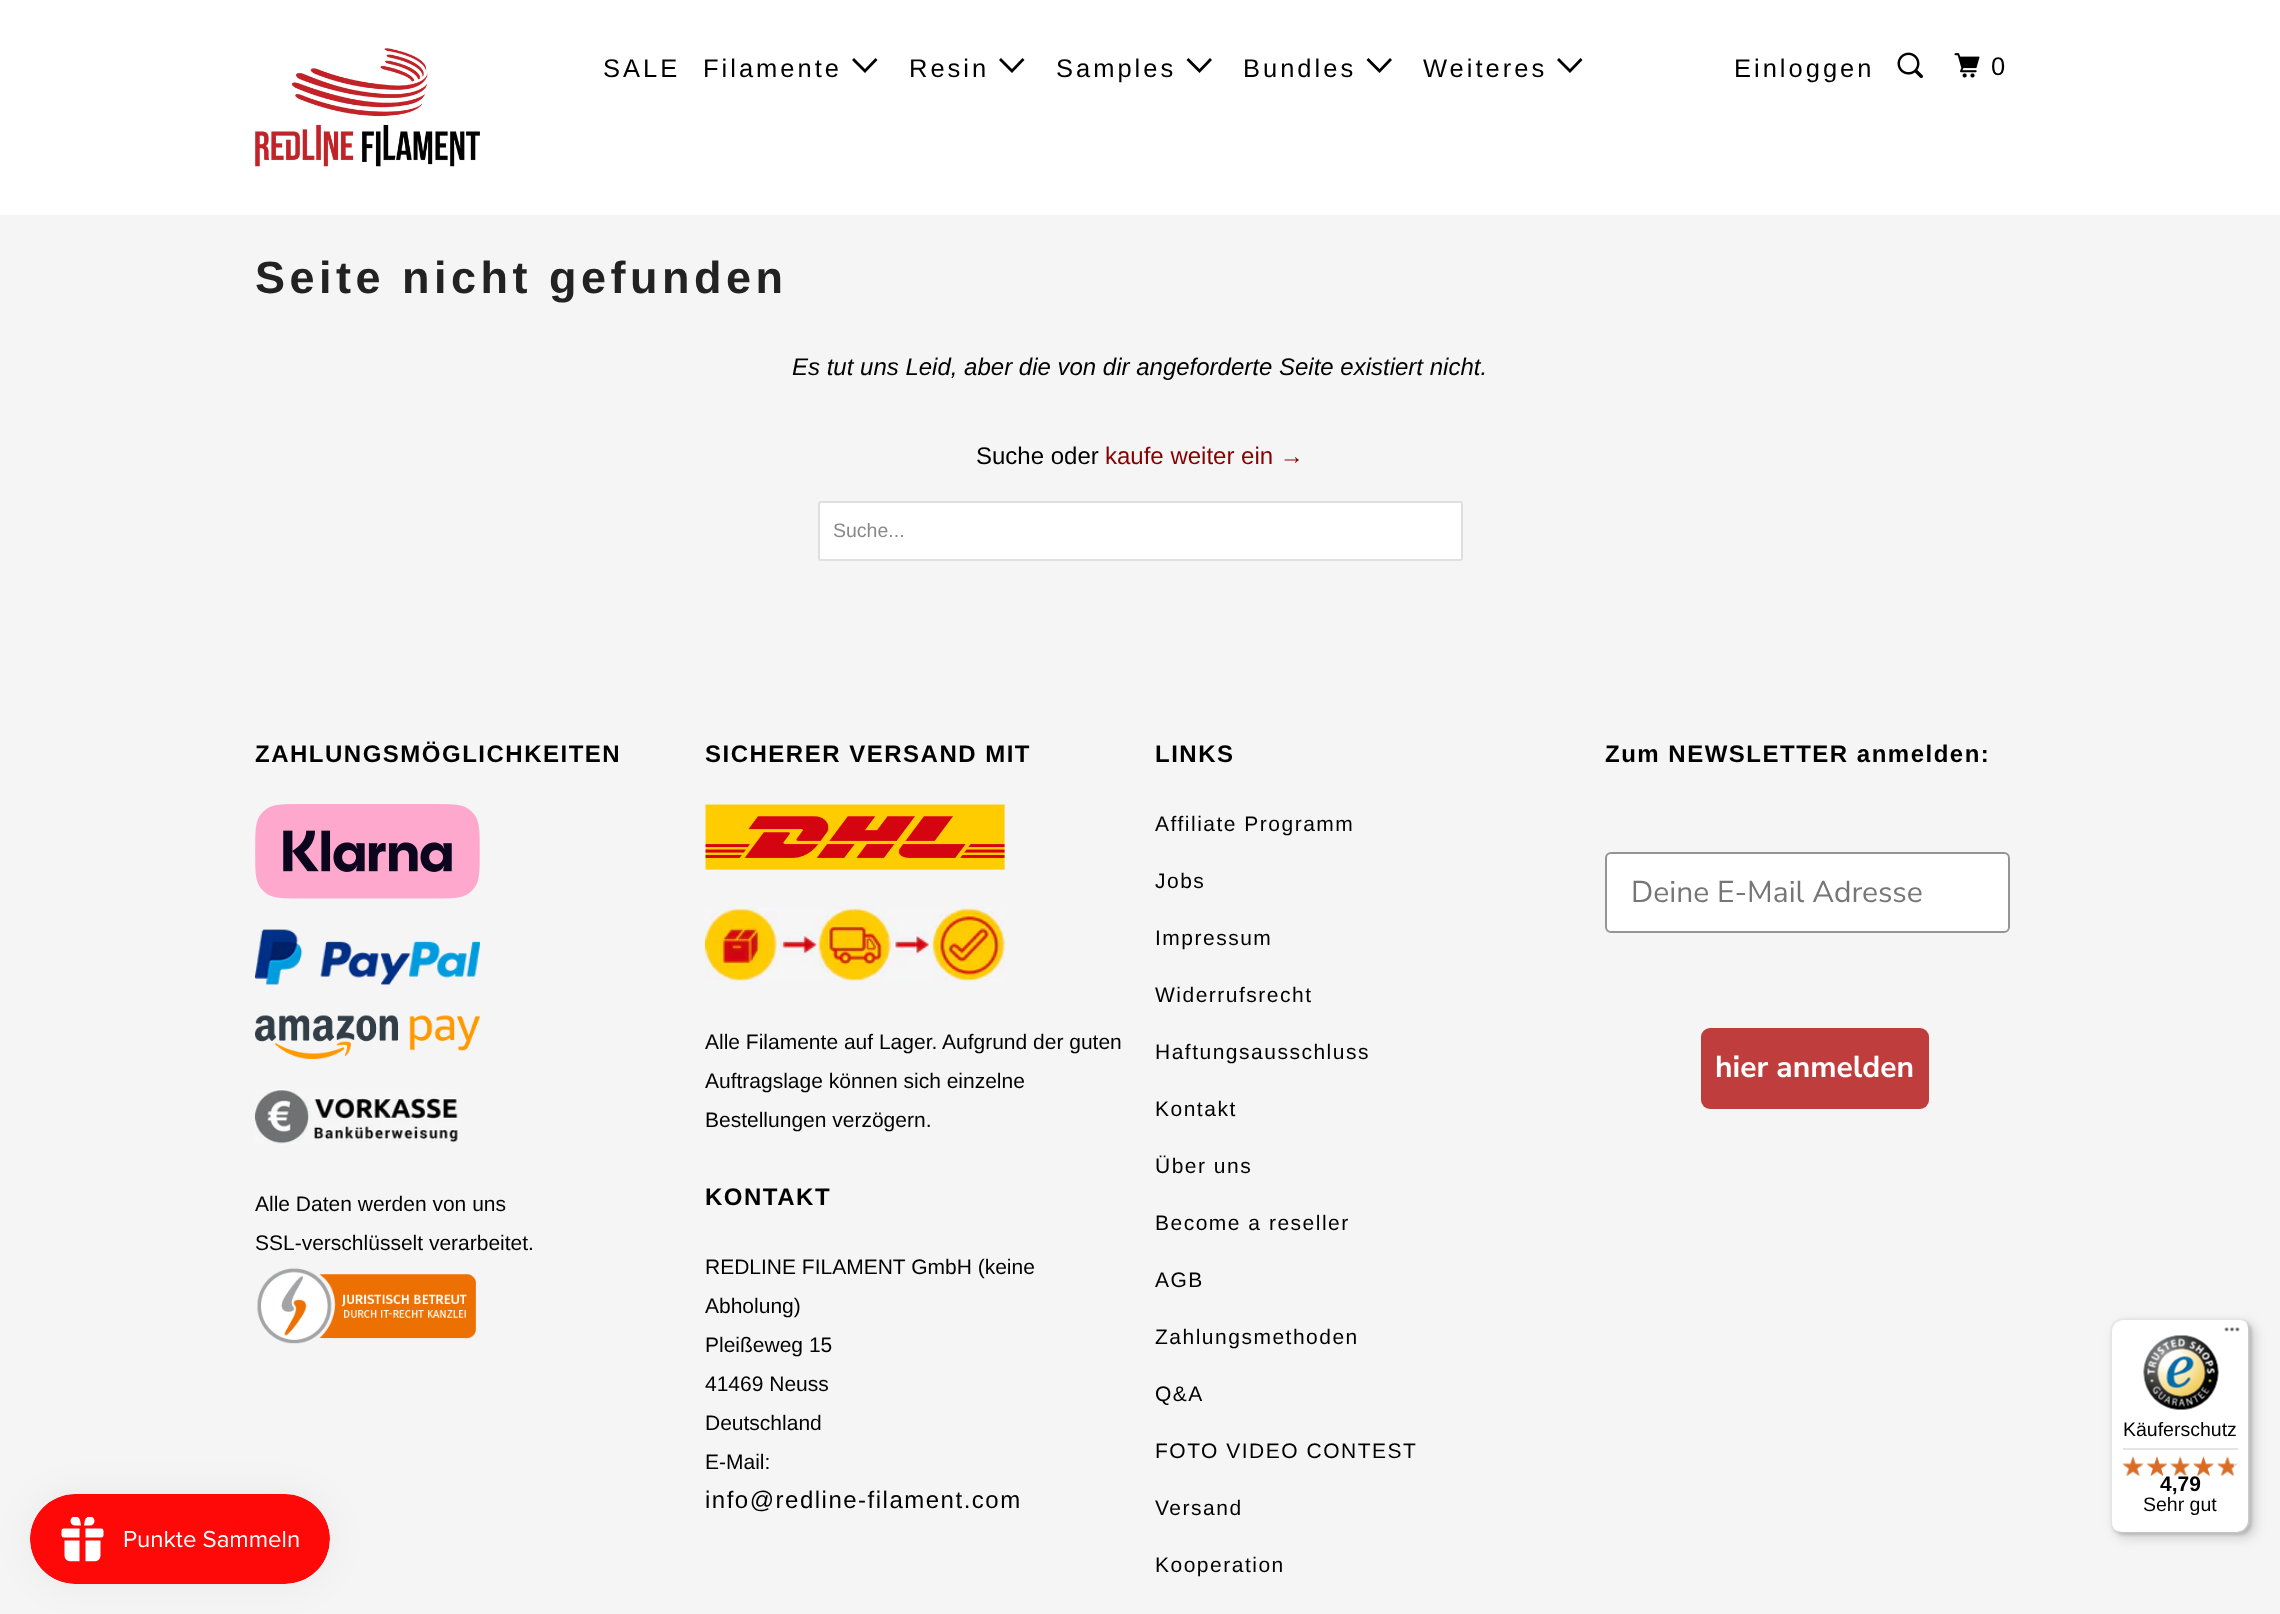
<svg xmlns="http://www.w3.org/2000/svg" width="2280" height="1614">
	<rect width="100%" height="100%" fill="#F5F5F5" />
	<rect x="30" y="1494" width="300" height="90" rx="45" fill="#000000" fill-opacity="0.05" filter="blur(19px)" />
	<image x="30" y="1494" width="300" height="90" href="assets/img1.png" />
	<rect x="0" y="0" width="2280" height="215" fill="#FFFFFF" />
	<image x="255" y="48" width="225" height="119" href="assets/img2.png" />
	<g font-family="Liberation Sans" font-size="25.5" letter-spacing="3" fill="#000000">
		<text x="603" y="77">SALE</text>
		<text x="703" y="77">Filamente</text>
	</g>
	<path d="M858.5 66.5L852 60L854 58L865 69L875.5 58L877.5 60L865 73Z" fill="#000000" />
	<text x="909" y="77" font-family="Liberation Sans" font-size="25.5" letter-spacing="3" fill="#000000">Resin</text>
	<path d="M1005.5 66.5L999 60L1001 58L1012 69L1022.5 58L1024.5 60L1012 73Z" fill="#000000" />
	<text x="1056" y="77" font-family="Liberation Sans" font-size="25.5" letter-spacing="3" fill="#000000">Samples</text>
	<path d="M1193 66.5L1186.5 60L1188.5 58L1199.5 69L1210 58L1212 60L1199.5 73Z" fill="#000000" />
	<text x="1243" y="77" font-family="Liberation Sans" font-size="25.5" letter-spacing="3" fill="#000000">Bundles</text>
	<path d="M1373 66.5L1366.5 60L1368.5 58L1379.5 69L1390 58L1392 60L1379.5 73Z" fill="#000000" />
	<text x="1423" y="77" font-family="Liberation Sans" font-size="25.5" letter-spacing="3" fill="#000000">Weiteres</text>
	<path d="M1563.5 66.5L1557 60L1559 58L1570 69L1580.5 58L1582.5 60L1570 73Z" fill="#000000" />
	<text x="1734" y="77" font-family="Liberation Sans" font-size="25.5" letter-spacing="3" fill="#000000">Einloggen</text>
	<image x="1897" y="52" width="26" height="27" href="assets/img3.png" />
	<image x="1954" y="53" width="26" height="25" href="assets/img4.png" />
	<text x="1991" y="75" font-family="Liberation Sans" font-size="25.5" letter-spacing="3" fill="#000000">0</text>
	<text x="255" y="293" font-family="Liberation Sans" font-size="45" font-weight="700" letter-spacing="4.5" fill="#232222">Seite nicht gefunden</text>
	<text x="792" y="375" font-family="Liberation Sans" font-size="24" font-style="italic" fill="#000000">Es tut uns Leid, aber die von dir angeforderte Seite existiert nicht.</text>
	<text x="976" y="464" font-family="Liberation Sans" font-size="24" fill="#000000">Suche oder</text>
	<text x="1105" y="464" font-family="Liberation Sans" font-size="24" fill="#870000">kaufe weiter ein →</text>
	<rect x="819" y="502" width="643" height="58" rx="2" fill="#FFFFFF" stroke="#DFDFDF" stroke-width="2" />
	<text x="833" y="537" font-family="Liberation Sans" font-size="19.5" fill="#888888">Suche...</text>
	<text x="255" y="762" font-family="Liberation Sans" font-size="24" font-weight="700" letter-spacing="1.5" fill="#000000">ZAHLUNGSMÖGLICHKEITEN</text>
	<image x="255" y="804" width="225" height="95" href="assets/img5.png" />
	<image x="255" y="929" width="225" height="56" href="assets/img6.png" />
	<image x="255" y="1015" width="225" height="44" href="assets/img7.png" />
	<image x="255" y="1089" width="204" height="56" href="assets/img8.png" />
	<g font-family="Liberation Sans" font-size="21" fill="#000000">
		<text x="255" y="1211">Alle Daten werden von uns</text>
		<text x="255" y="1250">SSL-verschlüsselt verarbeitet.</text>
	</g>
	<image x="257" y="1268" width="219" height="76" href="assets/img9.png" />
	<text x="705" y="762" font-family="Liberation Sans" font-size="24" font-weight="700" letter-spacing="1.5" fill="#000000">SICHERER VERSAND MIT</text>
	<image x="705" y="804" width="300" height="66" href="assets/img10.png" />
	<image x="705" y="907" width="300" height="76" href="assets/img11.png" />
	<g font-family="Liberation Sans" font-size="21" fill="#000000">
		<text x="705" y="1049">Alle Filamente auf Lager. Aufgrund der guten</text>
		<text x="705" y="1088">Auftragslage können sich einzelne</text>
		<text x="705" y="1127">Bestellungen verzögern.</text>
	</g>
	<text x="705" y="1205" font-family="Liberation Sans" font-size="24" font-weight="700" letter-spacing="1.5" fill="#000000">KONTAKT</text>
	<g font-family="Liberation Sans" font-size="21" fill="#000000">
		<text x="705" y="1274">REDLINE FILAMENT GmbH (keine</text>
		<text x="705" y="1313">Abholung)</text>
		<text x="705" y="1352">Pleißeweg 15</text>
		<text x="705" y="1391">41469 Neuss</text>
		<text x="705" y="1430">Deutschland</text>
		<text x="705" y="1469">E-Mail:</text>
	</g>
	<text x="705" y="1508" font-family="Liberation Sans" font-size="24" letter-spacing="1.5" fill="#000000">info@redline-filament.com</text>
	<text x="1155" y="762" font-family="Liberation Sans" font-size="24" font-weight="700" letter-spacing="1.5" fill="#000000">LINKS</text>
	<g font-family="Liberation Sans" font-size="21" letter-spacing="1.5" fill="#000000">
		<text x="1155" y="831">Affiliate Programm</text>
		<text x="1155" y="888">Jobs</text>
		<text x="1155" y="945">Impressum</text>
		<text x="1155" y="1002">Widerrufsrecht</text>
		<text x="1155" y="1059">Haftungsausschluss</text>
		<text x="1155" y="1116">Kontakt</text>
		<text x="1155" y="1173">Über uns</text>
		<text x="1155" y="1230">Become a reseller</text>
		<text x="1155" y="1287">AGB</text>
		<text x="1155" y="1344">Zahlungsmethoden</text>
		<text x="1155" y="1401">Q&amp;A</text>
		<text x="1155" y="1458">FOTO VIDEO CONTEST</text>
		<text x="1155" y="1515">Versand</text>
		<text x="1155" y="1572">Kooperation</text>
	</g>
	<text x="1605" y="762" font-family="Liberation Sans" font-size="24" font-weight="700" letter-spacing="1.5" fill="#000000">Zum NEWSLETTER anmelden:</text>
	<rect x="1606" y="853" width="403" height="79" rx="5" fill="#FFFFFF" stroke="#949596" stroke-width="2" />
	<text x="1631" y="902" font-family="Nunito Sans" font-size="30" fill="#767676">Deine E-Mail Adresse</text>
	<rect x="1701" y="1028" width="228" height="81" rx="9" fill="#C03D3D" />
	<text x="1715" y="1077" font-family="Nunito Sans" font-size="30" font-weight="700" fill="#FFFFFF">hier anmelden</text>
	<rect x="2115" y="1323" width="140" height="215" rx="12" fill="#000000" fill-opacity="0.15" filter="blur(6px)" />
	<rect x="2112" y="1320" width="140" height="215" rx="12" fill="#000000" fill-opacity="0.15" filter="blur(1.5px)" />
	<rect x="2111" y="1319" width="139" height="214" rx="12" fill="#FFFFFF" />
	<path d="M2124 1320H2240L2245 1321C2243 1320 2240 1319 2238 1319H2123C2116 1319 2111 1324 2111 1331V1521C2111 1524 2112 1527 2114 1529C2113 1527 2112 1525 2112 1522V1332C2112 1325 2117 1320 2124 1320Z" fill="#000000" fill-opacity="0.1" />
	<path d="M2117 1531C2118 1532 2121 1533 2123 1533H2238C2245 1533 2250 1528 2250 1521V1331C2250 1327 2248 1324 2246 1322C2247 1324 2248 1326 2248 1329V1520C2248 1526 2243 1532 2236 1532H2121Z" fill="#000000" fill-opacity="0.2" />
	<path d="M2115 1530C2117 1532 2120 1533 2123 1533H2238C2245 1533 2250 1528 2250 1521V1331C2250 1328 2249 1325 2247 1323C2248 1325 2249 1327 2249 1330V1520C2249 1527 2244 1532 2237 1532H2122C2119 1532 2117 1531 2115 1530Z" fill="#323232" fill-opacity="0.2" />
	<path d="M2115 1530C2117 1532 2120 1533 2123 1533H2238C2245 1533 2250 1528 2250 1521V1331C2250 1328 2249 1325 2247 1323C2248 1325 2249 1327 2249 1330V1520C2249 1527 2244 1532 2237 1532H2122C2119 1532 2117 1531 2115 1530Z" fill="#FFFFFF" fill-opacity="0.3" />
	<image x="2224" y="1327" width="16" height="5" href="assets/img12.png" />
	<image x="2143" y="1335" width="76" height="75" href="assets/img13.png" />
	<text x="2123" y="1436" font-family="Liberation Sans" font-size="19.5" fill="#000000">Käuferschutz</text>
	<rect x="2123" y="1448" width="115" height="2" fill="#E5E5E5" />
	<image x="2123" y="1457" width="20" height="19" href="assets/img19.png" />
	<image x="2122" y="1456" width="22" height="20" href="assets/img14.png" />
	<image x="2147" y="1456" width="20" height="20" href="assets/img20.png" />
	<image x="2147" y="1456" width="20" height="20" href="assets/img15.png" />
	<image x="2170" y="1456" width="20" height="20" href="assets/img21.png" />
	<image x="2170" y="1456" width="20" height="20" href="assets/img16.png" />
	<image x="2193" y="1456" width="21" height="20" href="assets/img22.png" />
	<image x="2193" y="1456" width="21" height="20" href="assets/img17.png" />
	<image x="2217" y="1457" width="21" height="19" href="assets/img23.png" />
	<image x="2217" y="1456" width="17" height="20" href="assets/img18.png" />
	<text x="2160" y="1491" font-family="Liberation Sans" font-size="21" font-weight="700" fill="#000000">4,79</text>
	<text x="2143" y="1511" font-family="Liberation Sans" font-size="19.5" fill="#000000">Sehr gut</text>
</svg>
